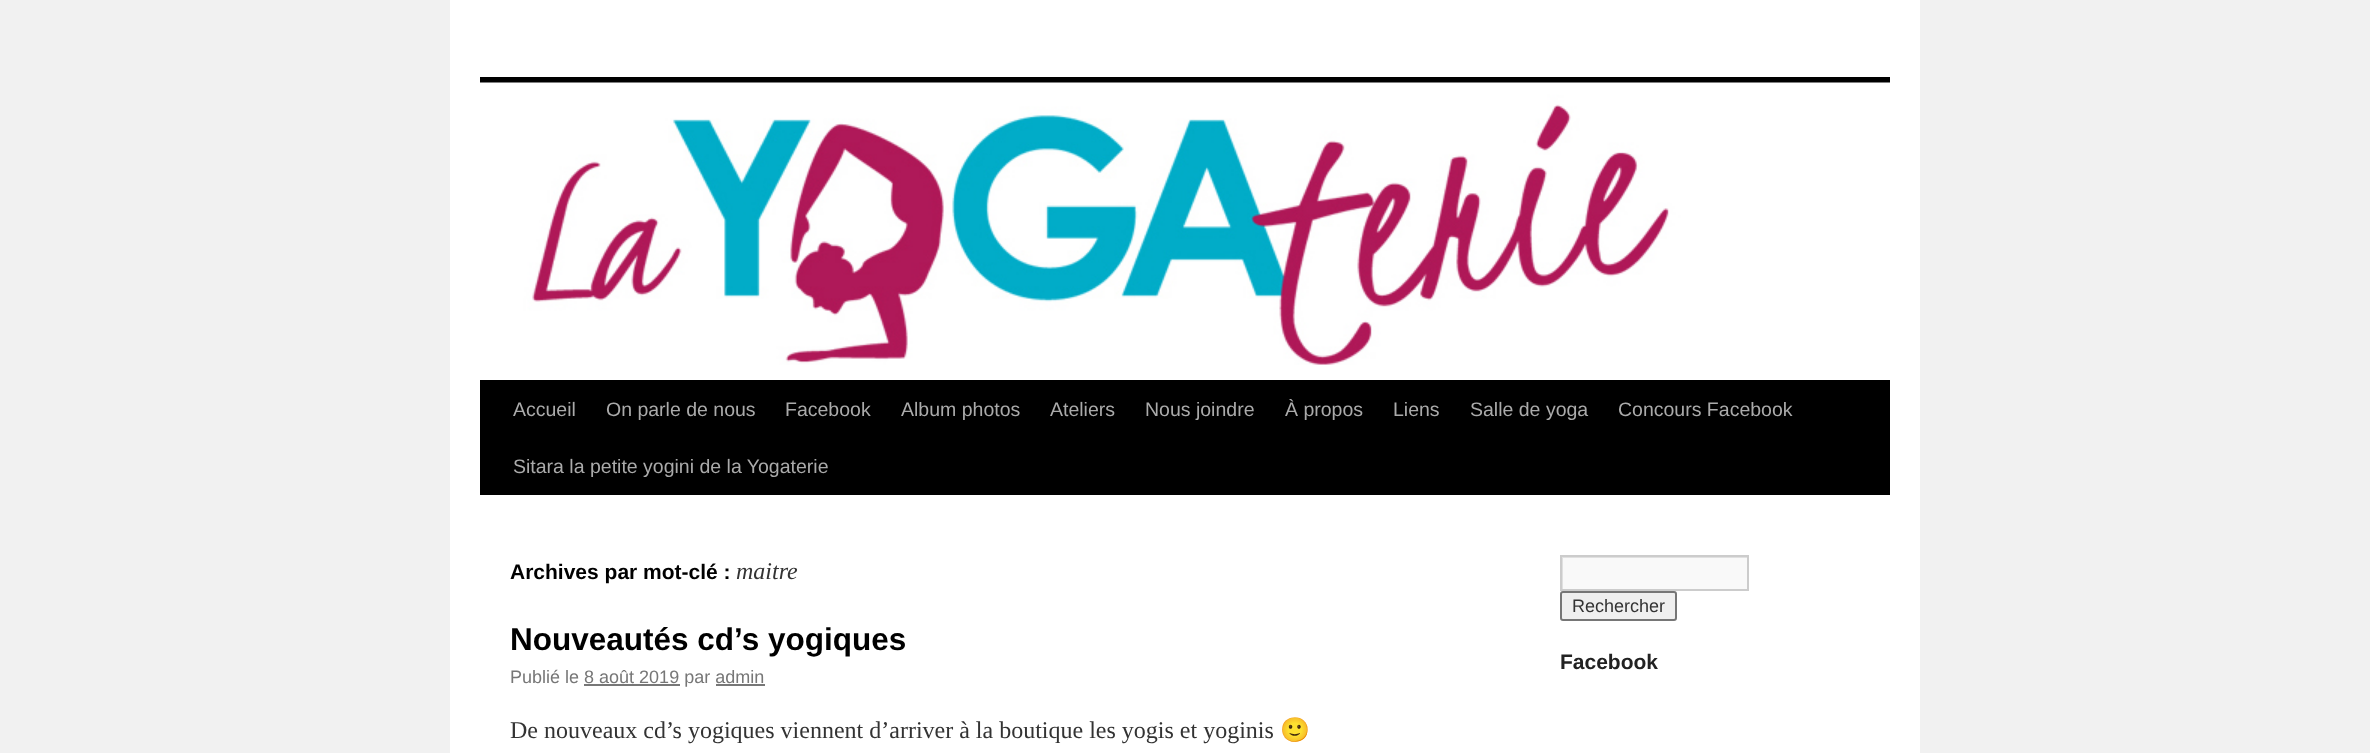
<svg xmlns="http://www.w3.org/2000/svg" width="2370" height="753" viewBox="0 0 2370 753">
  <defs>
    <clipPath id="clip1"><path d="M1562 557h186v33H1562z"/></clipPath>
  </defs>
  <rect width="100%" height="100%" fill="#f1f1f1"/>
  <path d="M450 0h1470v753H450z" fill="#fff"/>
  <path d="M480 77h1410v6H480z" fill="#000"/>
  <path d="M480 380h1410v115H480z" fill="#000"/>
  <image x="480" y="82" width="1410" height="283" href="img/1.png"/>
  <path d="M584 684h96v2H584z" fill="#777"/>
  <path d="M716 684h49v2H716z" fill="#777"/>
  <path d="M1563 558h184v31H1563z" fill="#f9f9f9"/>
  <g clip-path="url(#clip1)">
    <path d="M1413 408H1896V738H1413ZM1563 558H1749V591H1563Z" fill="#e0e0e0" fill-rule="evenodd"/>
  </g>
  <path d="M1561 556h187v34H1561z" fill="none" stroke="#ccc" stroke-width="2"/>
  <rect x="1561" y="592" width="115" height="28" rx="2" fill="#efefef" stroke="#767676" stroke-width="2"/>
  <g font-family="Liberation Sans" font-size="19.5" fill="#aaa">
    <text x="513" y="416">Accueil</text>
    <text x="606" y="416">On parle de nous</text>
    <text x="785" y="416">Facebook</text>
    <text x="901" y="416">Album photos</text>
    <text x="1050" y="416">Ateliers</text>
    <text x="1145" y="416">Nous joindre</text>
    <text x="1285" y="416">À propos</text>
    <text x="1393" y="416">Liens</text>
    <text x="1470" y="416">Salle de yoga</text>
    <text x="1618" y="416">Concours Facebook</text>
    <text x="513" y="473">Sitara la petite yogini de la Yogaterie</text>
  </g>
  <text x="510" y="579" font-family="Liberation Sans" font-size="21" font-weight="bold" fill="#000">Archives par mot-clé :</text>
  <text x="736" y="579" font-family="Liberation Serif" font-size="24" font-style="italic" fill="#333">maitre</text>
  <text x="510" y="650" font-family="Liberation Sans" font-size="31.5" font-weight="bold" fill="#000">Nouveautés cd’s yogiques</text>
  <text x="510" y="683" font-family="Liberation Sans" font-size="18" fill="#777">Publié le 8 août 2019 par admin</text>
  <text x="510" y="738" font-family="Liberation Serif" font-size="24" fill="#333">De nouveaux cd’s yogiques viennent d’arriver à la boutique les yogis et yoginis</text>
  <text x="1280" y="738" font-family="Noto Color Emoji" font-size="24" fill="#333">🙂</text>
  <text x="1572" y="612" font-family="Liberation Sans" font-size="18" fill="#333">Rechercher</text>
  <text x="1560" y="669" font-family="Liberation Sans" font-size="21" font-weight="bold" fill="#222">Facebook</text>
</svg>
